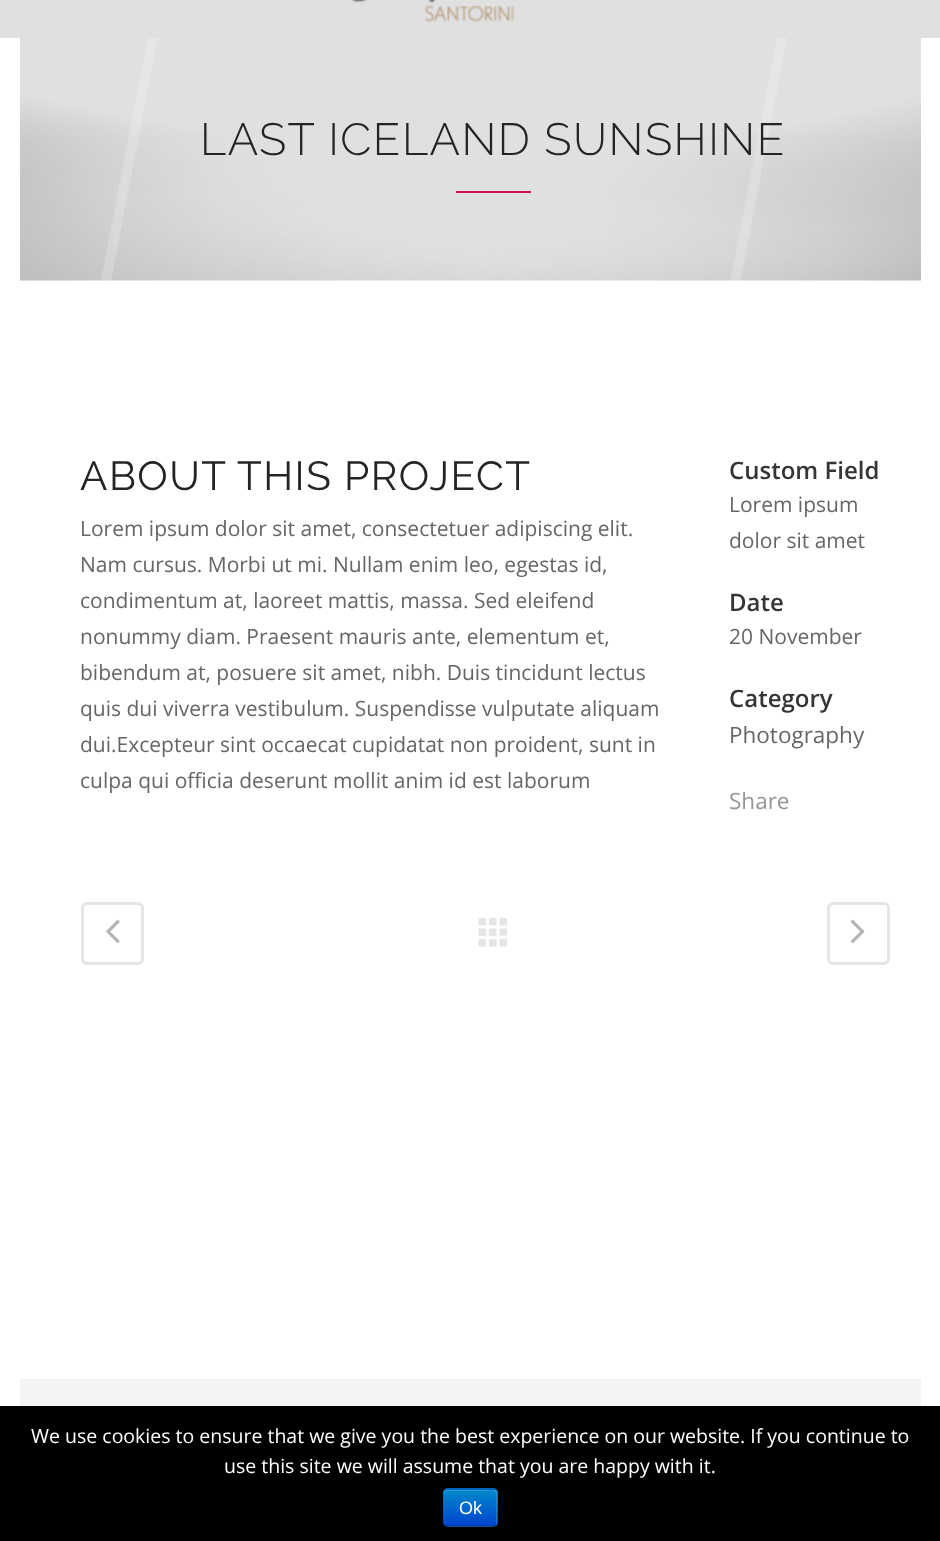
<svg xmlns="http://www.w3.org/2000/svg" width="940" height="1541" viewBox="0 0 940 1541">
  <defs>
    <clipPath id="clip1"><rect x="443" y="1488" width="55" height="39" rx="5"/></clipPath>
    <linearGradient id="g1" gradientUnits="userSpaceOnUse" x1="470" y1="1490" x2="470" y2="1526"><stop offset="0" stop-color="#08c"/><stop offset="1" stop-color="#04c"/></linearGradient>
  </defs>
  <rect width="100%" height="100%" fill="#fff"/>
  <path d="M0 0h940v38H0z" fill="#e0e0e0"/>
  <image x="351" y="0" width="164" height="23" href="img/1.png"/>
  <image x="20" y="38" width="901" height="243" href="img/2.png"/>
  <path d="M456 191h75v2H456z" fill="#d21151"/>
  <rect x="82.5" y="903.5" width="60" height="60" rx="4.5" fill="none" stroke="#e5e5e5" stroke-width="3"/>
  <image x="106" y="919" width="14" height="25" href="img/3.png"/>
  <image x="478" y="918" width="29" height="29" href="img/4.png"/>
  <rect x="828.5" y="903.5" width="60" height="60" rx="4.5" fill="none" stroke="#e5e5e5" stroke-width="3"/>
  <image x="850" y="919" width="15" height="25" href="img/5.png"/>
  <path d="M20 1379h901v27H20z" fill="#f4f4f4"/>
  <path d="M0 1406h940v135H0z" fill="#000"/>
  <rect x="443" y="1488" width="55" height="39" rx="5" fill="#006dcc"/>
  <g clip-path="url(#clip1)">
    <path d="M443 1490h55v36H443z" fill="url(#g1)"/>
  </g>
  <path d="M447 1491H478C498 1491 496 1487 496 1504V1525C497 1525 497 1524 497 1523V1493C497 1491 496 1490 494 1490H447C445 1490 444 1491 444 1493V1494C444 1492 445 1491 447 1491Z" fill="#ffffff33"/>
  <path d="M496 1525C495.5 1526 494.5 1526 493.5 1526H447C446 1526 445 1526 444.5 1525" fill="none" stroke="#00000040" stroke-width="1.5"/>
  <path d="M444.5 1525C443.5 1524.5 443 1523.5 443 1522.5V1492.5C443 1491.5 443.5 1490.5 444.5 1490C445 1489 446 1489 447 1489H493.5C494.5 1489 495.5 1489 496 1490C497 1490.5 497 1491.5 497 1492.5V1522.5C497 1523.5 497 1524.5 496 1525" fill="none" stroke="#0000001a" stroke-width="1.5"/>
  <text x="200" y="155" font-family="Raleway" font-size="45" font-weight="300" letter-spacing="1.5" fill="#242424">LAST ICELAND SUNSHINE</text>
  <text x="80" y="490" font-family="Raleway" font-size="40.5" letter-spacing="1.5" fill="#242424">ABOUT THIS PROJECT</text>
  <g font-family="Open Sans" font-size="21" fill="#666">
    <text x="80" y="536">Lorem ipsum dolor sit amet, consectetuer adipiscing elit.</text>
    <text x="80" y="572">Nam cursus. Morbi ut mi. Nullam enim leo, egestas id,</text>
    <text x="80" y="608">condimentum at, laoreet mattis, massa. Sed eleifend</text>
    <text x="80" y="644">nonummy diam. Praesent mauris ante, elementum et,</text>
    <text x="80" y="680">bibendum at, posuere sit amet, nibh. Duis tincidunt lectus</text>
    <text x="80" y="716">quis dui viverra vestibulum. Suspendisse vulputate aliquam</text>
    <text x="80" y="752">dui.Excepteur sint occaecat cupidatat non proident, sunt in</text>
    <text x="80" y="788">culpa qui officia deserunt mollit anim id est laborum</text>
  </g>
  <text x="729" y="479" font-family="Open Sans" font-size="24" font-weight="600" fill="#353535">Custom Field</text>
  <g font-family="Open Sans" font-size="21" fill="#666">
    <text x="729" y="512">Lorem ipsum</text>
    <text x="729" y="548">dolor sit amet</text>
  </g>
  <text x="729" y="611" font-family="Open Sans" font-size="24" font-weight="600" fill="#353535">Date</text>
  <text x="729" y="644" font-family="Open Sans" font-size="21" fill="#666">20 November</text>
  <text x="729" y="707" font-family="Open Sans" font-size="24" font-weight="600" fill="#353535">Category</text>
  <text x="729" y="743" font-family="Open Sans" font-size="22.5" fill="#666">Photography</text>
  <text x="729" y="809" font-family="Open Sans" font-size="22.5" fill="#969696">Share</text>
  <g font-family="Open Sans" font-size="19.5" fill="#fff">
    <text x="31" y="1443">We use cookies to ensure that we give you the best experience on our website. If you continue to</text>
    <text x="224" y="1473">use this site we will assume that you are happy with it.</text>
  </g>
  <text x="459" y="1514" font-family="Liberation Sans" font-size="18" fill="#fff">Ok</text>
</svg>
